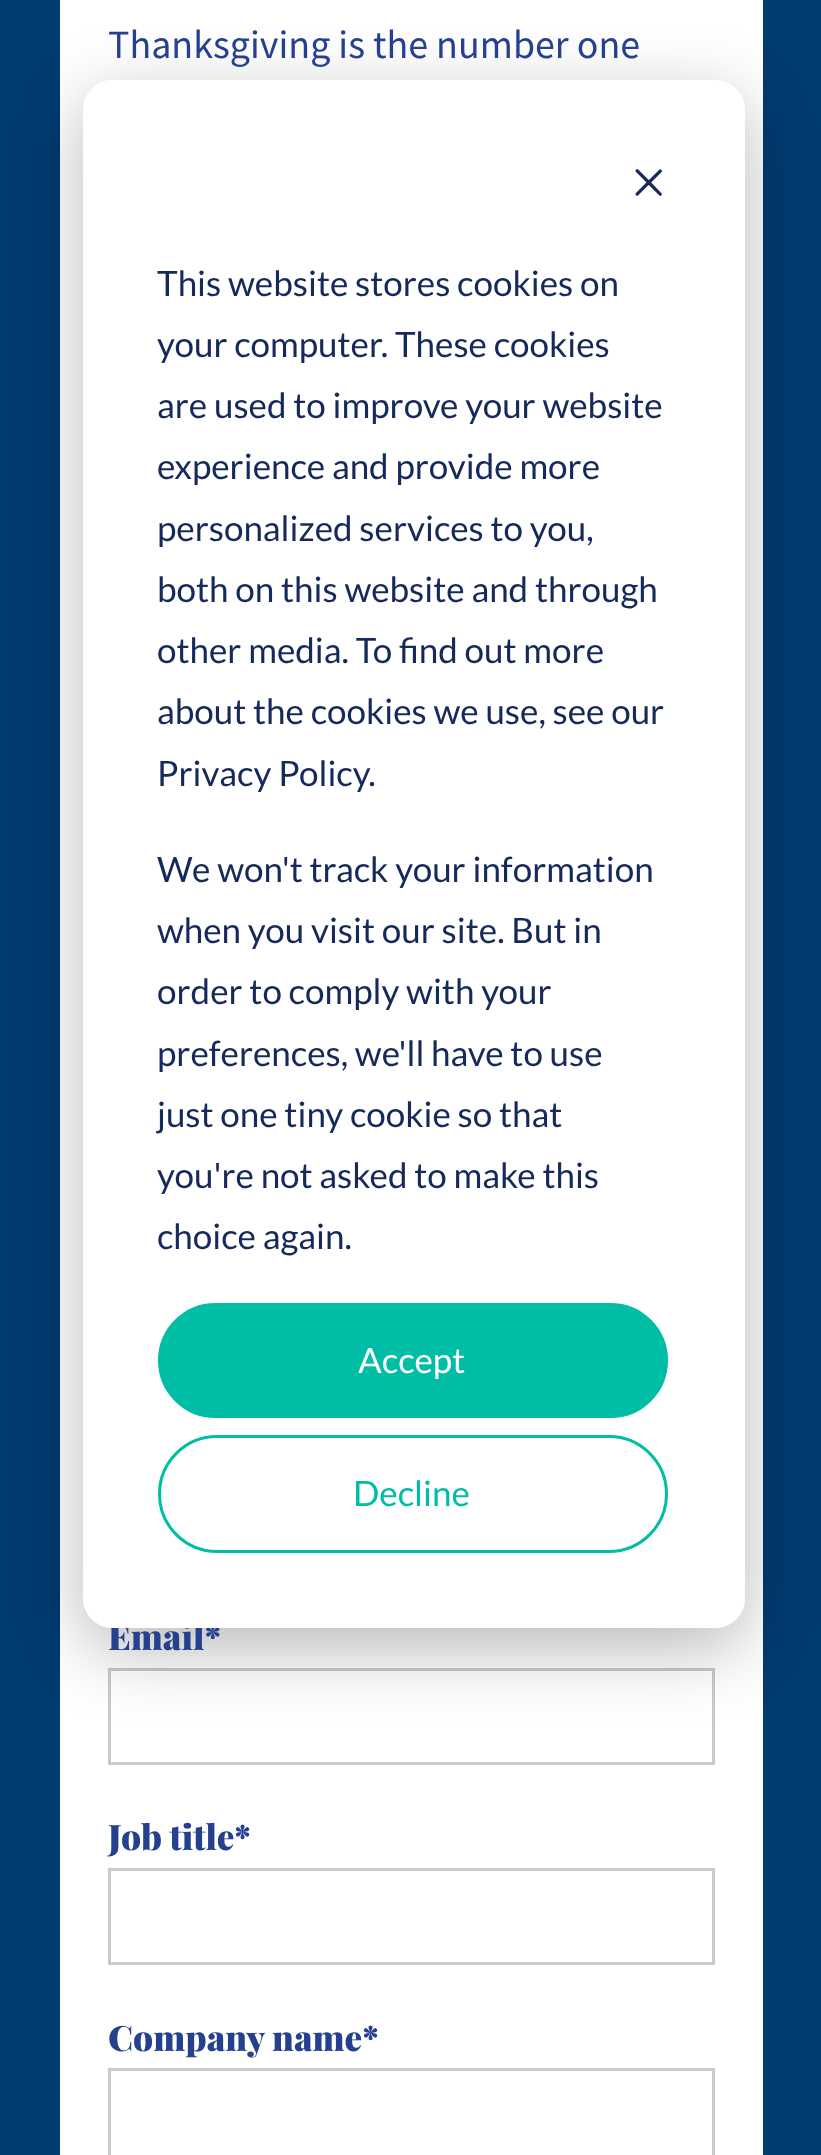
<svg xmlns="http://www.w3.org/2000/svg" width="821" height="2155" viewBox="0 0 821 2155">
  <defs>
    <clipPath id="clip1"><path d="M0 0H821V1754H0ZM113 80H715C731.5 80 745 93.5 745 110V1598C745 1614.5 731.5 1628 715 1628H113C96.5 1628 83 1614.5 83 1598V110C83 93.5 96.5 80 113 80Z" clip-rule="evenodd"/></clipPath>
  </defs>
  <rect width="100%" height="100%" fill="#003b71"/>
  <path d="M60 0h703v2155H60z" fill="#fff"/>
  <path d="M109.5 1669.5h604v94H109.5z" fill="none" stroke="#cacaca" stroke-width="3"/>
  <path d="M109.5 1869.5h604v94H109.5z" fill="none" stroke="#cacaca" stroke-width="3"/>
  <path d="M109.5 2069.5h604v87H109.5z" fill="none" stroke="#cacaca" stroke-width="3"/>
  <g clip-path="url(#clip1)">
    <rect x="83" y="100" width="662" height="1548" rx="30" fill="#00000047" filter="blur(35px)"/>
  </g>
  <text x="108" y="58" font-family="Source Sans Pro" font-size="40" fill="#25408f">Thanksgiving is the number one</text>
  <g font-family="Playfair Display" font-size="35" font-weight="900" fill="#25408f">
    <text x="108" y="1650">Email*</text>
    <text x="108" y="1850">Job title*</text>
    <text x="108" y="2051">Company name*</text>
  </g>
  <rect x="83" y="80" width="662" height="1548" rx="30" fill="#fff"/>
  <image x="635" y="169" width="27" height="27" href="img/1.png"/>
  <g font-family="Lato" font-size="35" fill="#15295a">
    <text x="157" y="296">This website stores cookies on</text>
    <text x="157" y="357">your computer. These cookies</text>
    <text x="157" y="418">are used to improve your website</text>
    <text x="157" y="479">experience and provide more</text>
    <text x="157" y="541">personalized services to you,</text>
    <text x="157" y="602">both on this website and through</text>
    <text x="157" y="663">other media. To find out more</text>
    <text x="157" y="724">about the cookies we use, see our</text>
    <text x="157" y="786">Privacy Policy.</text>
    <text x="157" y="882">We won't track your information</text>
    <text x="157" y="943">when you visit our site. But in</text>
    <text x="157" y="1004">order to comply with your</text>
    <text x="157" y="1066">preferences, we'll have to use</text>
    <text x="157" y="1127">just one tiny cookie so that</text>
    <text x="157" y="1188">you're not asked to make this</text>
    <text x="157" y="1249">choice again.</text>
  </g>
  <rect x="159.5" y="1304.5" width="507" height="112" rx="56" fill="#00bda5" stroke="#00bda5" stroke-width="3"/>
  <text x="358" y="1373" font-family="Lato" font-size="35" fill="#fff">Accept</text>
  <rect x="159.5" y="1436.5" width="507" height="115" rx="57.5" fill="none" stroke="#00bda5" stroke-width="3"/>
  <text x="353" y="1506" font-family="Lato" font-size="35" fill="#00bda5">Decline</text>
</svg>
